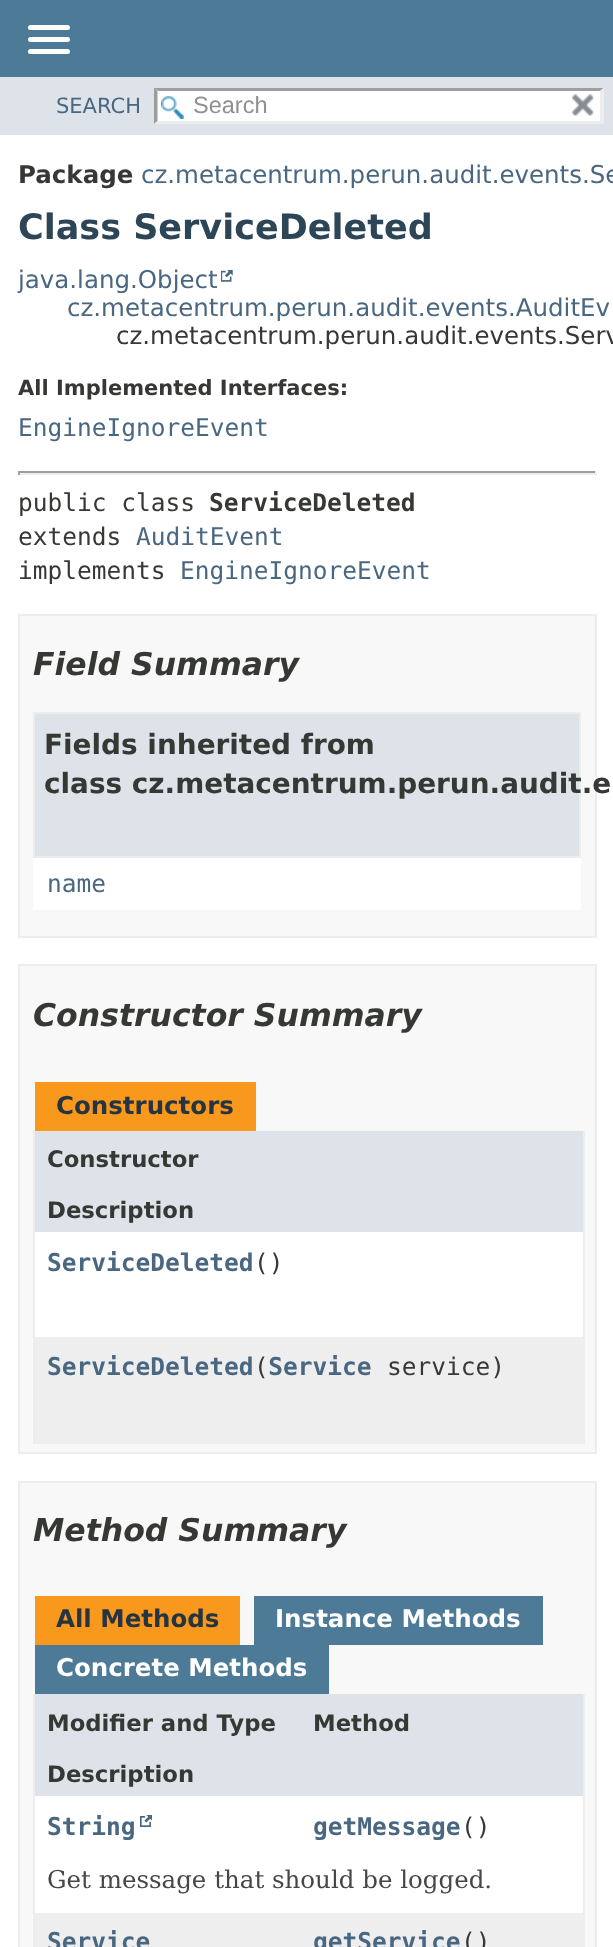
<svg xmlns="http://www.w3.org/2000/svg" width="613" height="1947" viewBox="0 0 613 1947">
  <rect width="100%" height="100%" fill="#fff"/>
  <path d="M0 0h613v77H0z" fill="#4d7a97"/>
  <rect x="28" y="25" width="42" height="5" rx="2.5" fill="#fff"/>
  <rect x="28" y="37" width="42" height="5" rx="2.5" fill="#fff"/>
  <rect x="28" y="49" width="42" height="5" rx="2.5" fill="#fff"/>
  <path d="M0 77h613v58H0z" fill="#dee3e9"/>
  <path d="M154 88h450v36H154z" fill="#fff"/>
  <image x="161" y="96" width="23" height="23" href="img/1.png"/>
  <path d="M154 88H604L600 91H158Z" fill="#9e9e9e"/>
  <path d="M604 87.5V124L600 121V91Z" fill="#ededed"/>
  <path d="M604 124H154L158 121H600Z" fill="#ededed"/>
  <path d="M154 124V87.5L157.5 91V121Z" fill="#9e9e9e"/>
  <image x="572" y="93" width="22" height="23" href="img/2.png"/>
  <image x="221" y="270" width="12" height="12" href="img/3.png"/>
  <path d="M18 471h579v2H18z" fill="#9f9f9f"/>
  <path d="M595 471h2v4H595z" fill="#eee"/>
  <path d="M18 473h579v2H18z" fill="#eee"/>
  <path d="M18 471h2v4H18z" fill="#9f9f9f"/>
  <path d="M19 615h577v322H19z" fill="#f8f8f8" stroke="#ededed" stroke-width="2"/>
  <path d="M33 858h548v52H33z" fill="#fff"/>
  <path d="M34 713h546v144H34z" fill="#dee3e9" stroke="#ededed" stroke-width="2"/>
  <path d="M19 965h577v488H19z" fill="#f8f8f8" stroke="#ededed" stroke-width="2"/>
  <path d="M35 1082h221v49H35z" fill="#f8981d"/>
  <path d="M583 1131h2v313H583z" fill="#ededed"/>
  <path d="M33 1442h552v2H33z" fill="#ededed"/>
  <path d="M33 1131h2v313H33z" fill="#ededed"/>
  <path d="M35 1131h548v101H35z" fill="#dee3e9"/>
  <path d="M35 1232h548v105H35z" fill="#fff"/>
  <path d="M35 1337h548v105H35z" fill="#eeeeef"/>
  <path d="M19 1482h577v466H19z" fill="#f8f8f8" stroke="#ededed" stroke-width="2"/>
  <path d="M35 1596h205v49H35z" fill="#f8981d"/>
  <path d="M254 1596h289v49H254z" fill="#4d7a97"/>
  <path d="M35 1645h294v49H35z" fill="#4d7a97"/>
  <path d="M583 1694h2v253H583z" fill="#ededed"/>
  <path d="M33 1694h2v253H33z" fill="#ededed"/>
  <path d="M35 1694h548v102H35z" fill="#dee3e9"/>
  <path d="M35 1796h548v117H35z" fill="#fff"/>
  <image x="140" y="1815" width="12" height="12" href="img/4.png"/>
  <path d="M35 1913h548v34H35z" fill="#eeeeef"/>
  <text x="56" y="113" font-family="DejaVu Sans" font-size="21" fill="#4a6782">SEARCH</text>
  <text x="193" y="113" font-family="Liberation Sans" font-size="23.5" fill="#909090">Search</text>
  <text x="18" y="183" font-family="DejaVu Sans" font-size="24.5" font-weight="bold" fill="#353833">Package</text>
  <text x="141" y="183" font-family="DejaVu Sans" font-size="24.5" fill="#4a6782">cz.metacentrum.perun.audit.events.Se</text>
  <text x="18" y="239" font-family="DejaVu Sans" font-size="35" font-weight="bold" fill="#2c4557">Class ServiceDeleted</text>
  <g font-family="DejaVu Sans" font-size="24.5" fill="#4a6782">
    <text x="18" y="288">java.lang.Object</text>
    <text x="67" y="316">cz.metacentrum.perun.audit.events.AuditEv</text>
  </g>
  <text x="116" y="344" font-family="DejaVu Sans" font-size="24.5" fill="#353833">cz.metacentrum.perun.audit.events.Serv</text>
  <text x="18" y="395" font-family="DejaVu Sans" font-size="21" font-weight="bold" fill="#353833">All Implemented Interfaces:</text>
  <text x="18" y="436" font-family="DejaVu Sans Mono" font-size="24.5" fill="#4a6782">EngineIgnoreEvent</text>
  <text x="18" y="511" font-family="DejaVu Sans Mono" font-size="24.5" fill="#353833">public class</text>
  <text x="209" y="511" font-family="DejaVu Sans Mono" font-size="24.5" font-weight="bold" fill="#353833">ServiceDeleted</text>
  <text x="18" y="545" font-family="DejaVu Sans Mono" font-size="24.5" fill="#353833">extends</text>
  <text x="136" y="545" font-family="DejaVu Sans Mono" font-size="24.5" fill="#4a6782">AuditEvent</text>
  <text x="18" y="579" font-family="DejaVu Sans Mono" font-size="24.5" fill="#353833">implements</text>
  <text x="180" y="579" font-family="DejaVu Sans Mono" font-size="24.5" fill="#4a6782">EngineIgnoreEvent</text>
  <text x="33" y="675" font-family="DejaVu Sans" font-size="31.5" font-weight="bold" font-style="italic" fill="#353833">Field Summary</text>
  <g font-family="DejaVu Sans" font-size="27.9" font-weight="bold" fill="#353833">
    <text x="44" y="754">Fields inherited from</text>
    <text x="44" y="793">class cz.metacentrum.perun.audit.e</text>
  </g>
  <text x="47" y="892" font-family="DejaVu Sans Mono" font-size="24.5" fill="#4a6782">name</text>
  <text x="33" y="1026" font-family="DejaVu Sans" font-size="31.5" font-weight="bold" font-style="italic" fill="#353833">Constructor Summary</text>
  <text x="56" y="1114" font-family="DejaVu Sans" font-size="24.5" font-weight="bold" fill="#253441">Constructors</text>
  <g font-family="DejaVu Sans" font-size="22.75" font-weight="bold" fill="#353833">
    <text x="47" y="1167">Constructor</text>
    <text x="47" y="1218">Description</text>
  </g>
  <text x="47" y="1271" font-family="DejaVu Sans Mono" font-size="24.5" font-weight="bold" fill="#4a6782">ServiceDeleted</text>
  <text x="254" y="1271" font-family="DejaVu Sans Mono" font-size="24.5" fill="#353833">()</text>
  <text x="47" y="1375" font-family="DejaVu Sans Mono" font-size="24.5" font-weight="bold" fill="#4a6782">ServiceDeleted Service</text>
  <g font-family="DejaVu Sans Mono" font-size="24.5" fill="#353833">
    <text x="254" y="1375">(</text>
    <text x="387" y="1375">service)</text>
  </g>
  <text x="33" y="1541" font-family="DejaVu Sans" font-size="31.5" font-weight="bold" font-style="italic" fill="#353833">Method Summary</text>
  <text x="56" y="1627" font-family="DejaVu Sans" font-size="24.5" font-weight="bold" fill="#253441">All Methods</text>
  <g font-family="DejaVu Sans" font-size="24.5" font-weight="bold" fill="#fff">
    <text x="275" y="1627">Instance Methods</text>
    <text x="56" y="1676">Concrete Methods</text>
  </g>
  <g font-family="DejaVu Sans" font-size="22.75" font-weight="bold" fill="#353833">
    <text x="47" y="1731">Modifier and Type</text>
    <text x="313" y="1731">Method</text>
    <text x="47" y="1782">Description</text>
  </g>
  <g font-family="DejaVu Sans Mono" font-size="24.5" font-weight="bold" fill="#4a6782">
    <text x="47" y="1835">String</text>
    <text x="313" y="1835">getMessage</text>
  </g>
  <text x="461" y="1835" font-family="DejaVu Sans Mono" font-size="24.5" fill="#353833">()</text>
  <text x="47" y="1888" font-family="DejaVu Serif" font-size="24.5" fill="#474747">Get message that should be logged.</text>
  <g font-family="DejaVu Sans Mono" font-size="24.5" font-weight="bold" fill="#4a6782">
    <text x="47" y="1950">Service</text>
    <text x="313" y="1950">getService</text>
  </g>
  <text x="461" y="1950" font-family="DejaVu Sans Mono" font-size="24.5" fill="#353833">()</text>
</svg>
